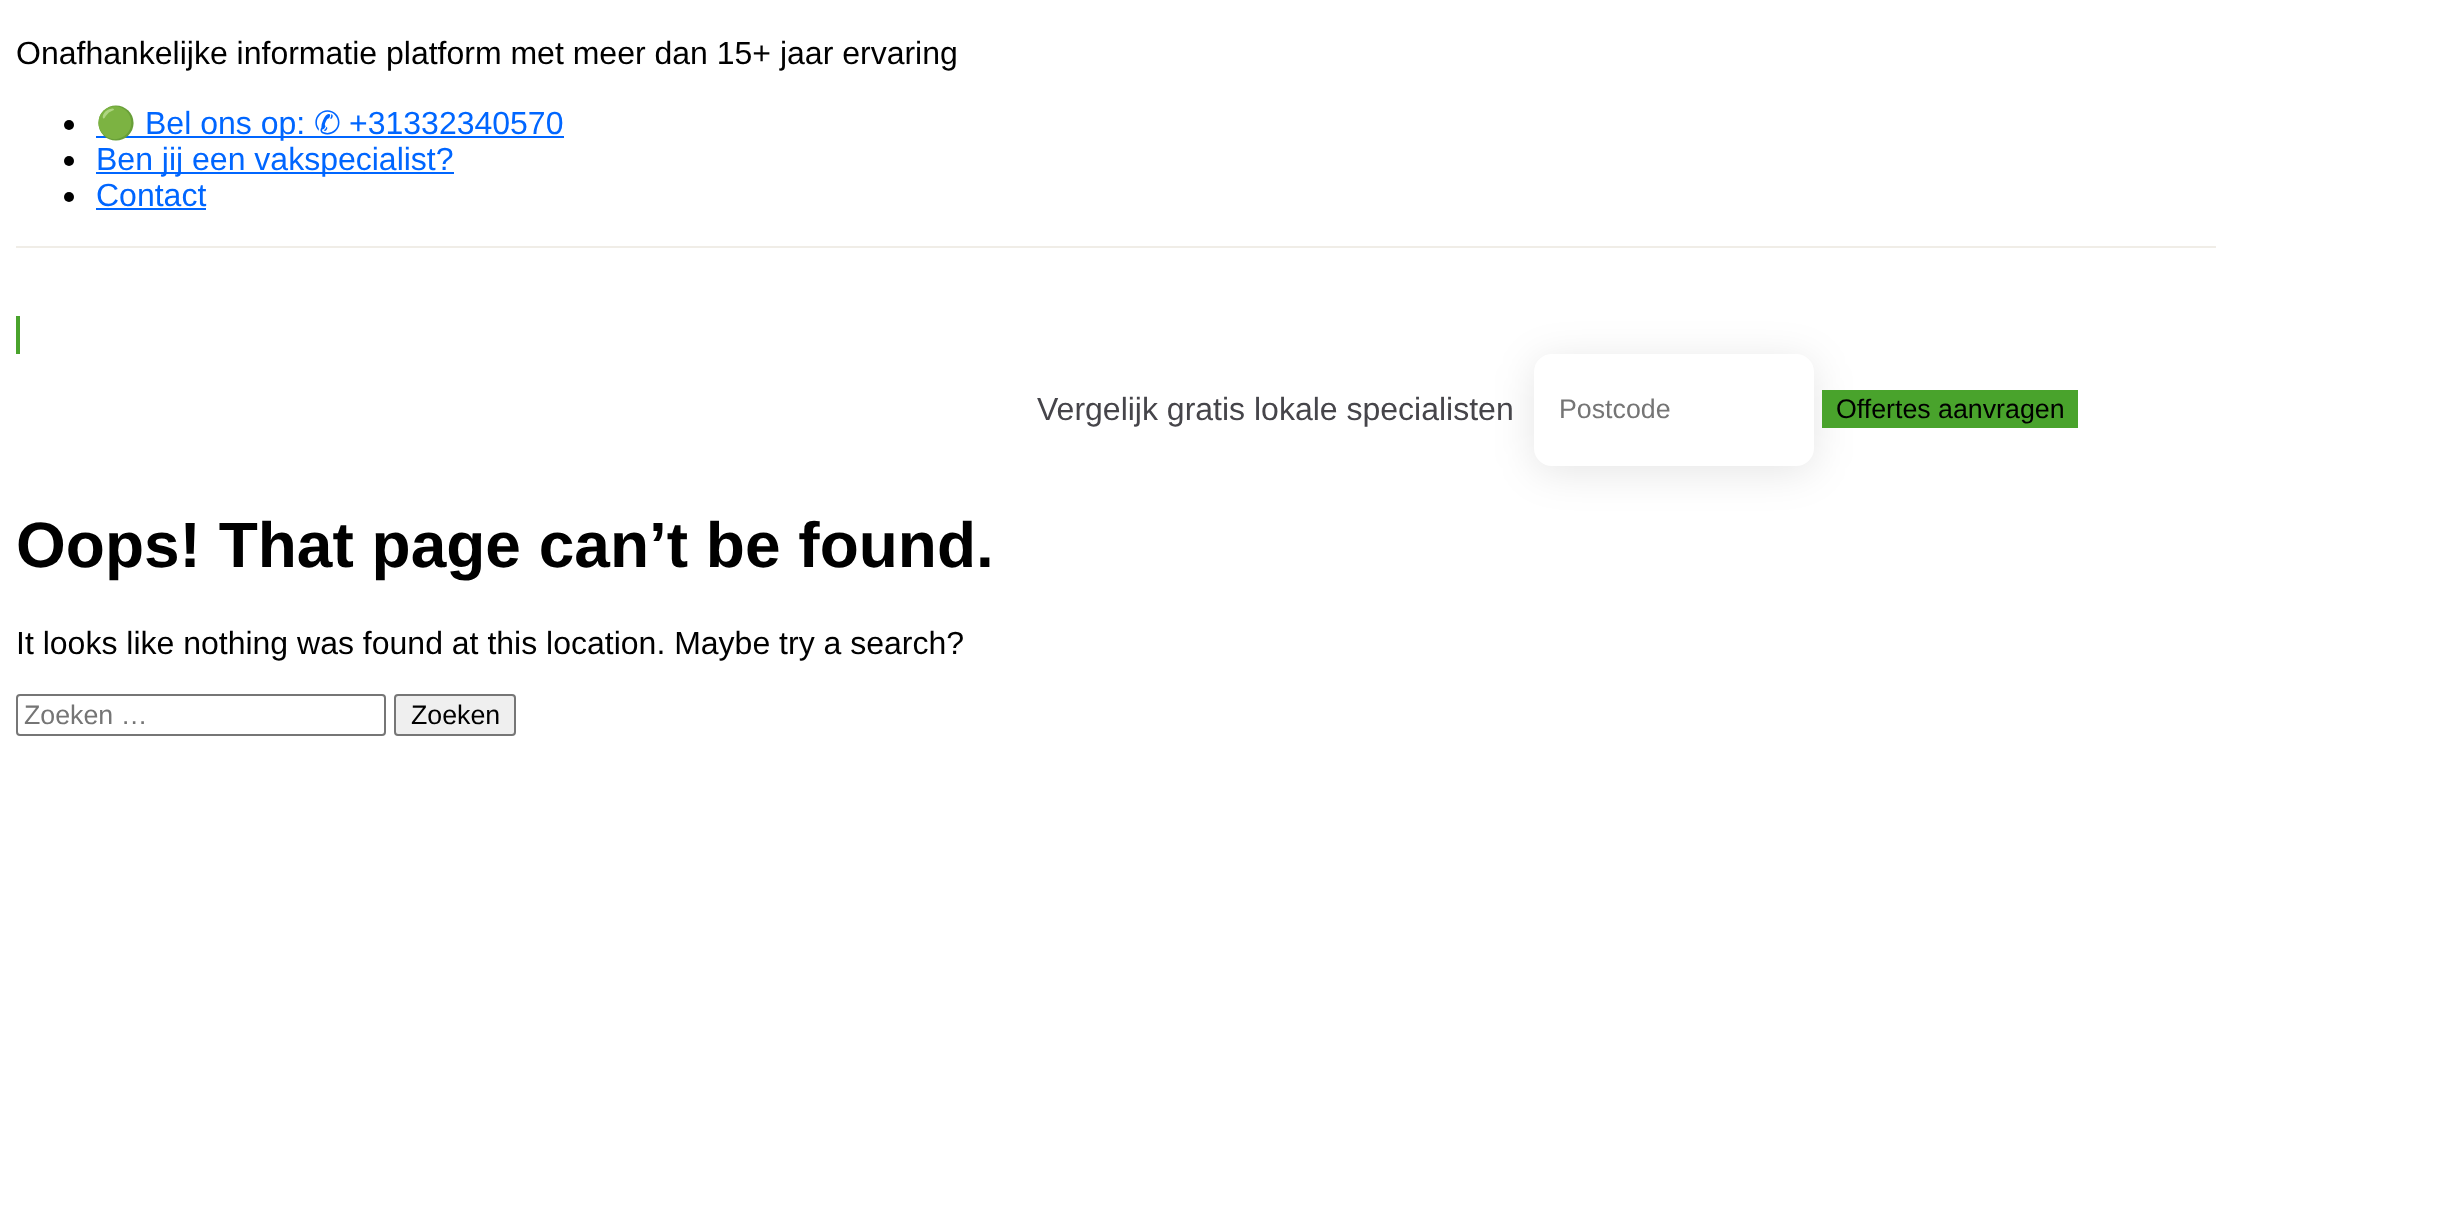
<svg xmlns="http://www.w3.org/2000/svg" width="2443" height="1214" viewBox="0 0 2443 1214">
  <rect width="100%" height="100%" fill="#fff"/>
  <path d="M16 246h2200v2H16z" fill="#f0ede7"/>
  <circle cx="69" cy="125" r="5" fill="#000"/>
  <path d="M96 136h468v2H96z" fill="#06f"/>
  <circle cx="69" cy="161" r="5" fill="#000"/>
  <path d="M96 172h358v2H96z" fill="#06f"/>
  <circle cx="69" cy="197" r="5" fill="#000"/>
  <path d="M96 208h110v2H96z" fill="#06f"/>
  <path d="M16 316h4v38H16z" fill="#49a32c"/>
  <rect x="1534" y="360" width="280" height="112" rx="18" fill="#0000001a" filter="blur(20px)"/>
  <rect x="1535" y="355" width="278" height="110" rx="17" fill="#fff" stroke="#fff" stroke-width="2"/>
  <path d="M1822 390h256v38H1822z" fill="#49a32c"/>
  <rect x="17" y="695" width="368" height="40" rx="3" fill="none" stroke="#767676" stroke-width="2"/>
  <rect x="395" y="695" width="120" height="40" rx="3" fill="#efefef" stroke="#767676" stroke-width="2"/>
  <text x="16" y="64" font-family="Liberation Sans" font-size="32" fill="#000">Onafhankelijke informatie platform met meer dan 15+ jaar ervaring</text>
  <text x="96" y="134" font-family="Noto Color Emoji" font-size="32" fill="#06f">🟢</text>
  <text x="145" y="134" font-family="Liberation Sans" font-size="32" fill="#06f">Bel ons op:</text>
  <text x="314" y="134" font-family="DejaVu Sans" font-size="32" fill="#06f">✆</text>
  <g font-family="Liberation Sans" font-size="32" fill="#06f">
    <text x="349" y="134">+31332340570</text>
    <text x="96" y="170">Ben jij een vakspecialist?</text>
    <text x="96" y="206">Contact</text>
  </g>
  <text x="1037" y="420" font-family="Liberation Sans" font-size="32" fill="#46454a">Vergelijk gratis lokale specialisten</text>
  <text x="1559" y="418" font-family="Liberation Sans" font-size="26.75" fill="#757575">Postcode</text>
  <text x="1836" y="418" font-family="Liberation Sans" font-size="26.75" fill="#000">Offertes aanvragen</text>
  <text x="16" y="567" font-family="Liberation Sans" font-size="64" font-weight="bold" fill="#000">Oops! That page can’t be found.</text>
  <text x="16" y="654" font-family="Liberation Sans" font-size="32" fill="#000">It looks like nothing was found at this location. Maybe try a search?</text>
  <text x="24" y="724" font-family="Liberation Sans" font-size="26.75" fill="#757575">Zoeken …</text>
  <text x="411" y="724" font-family="Liberation Sans" font-size="26.75" fill="#000">Zoeken</text>
</svg>
